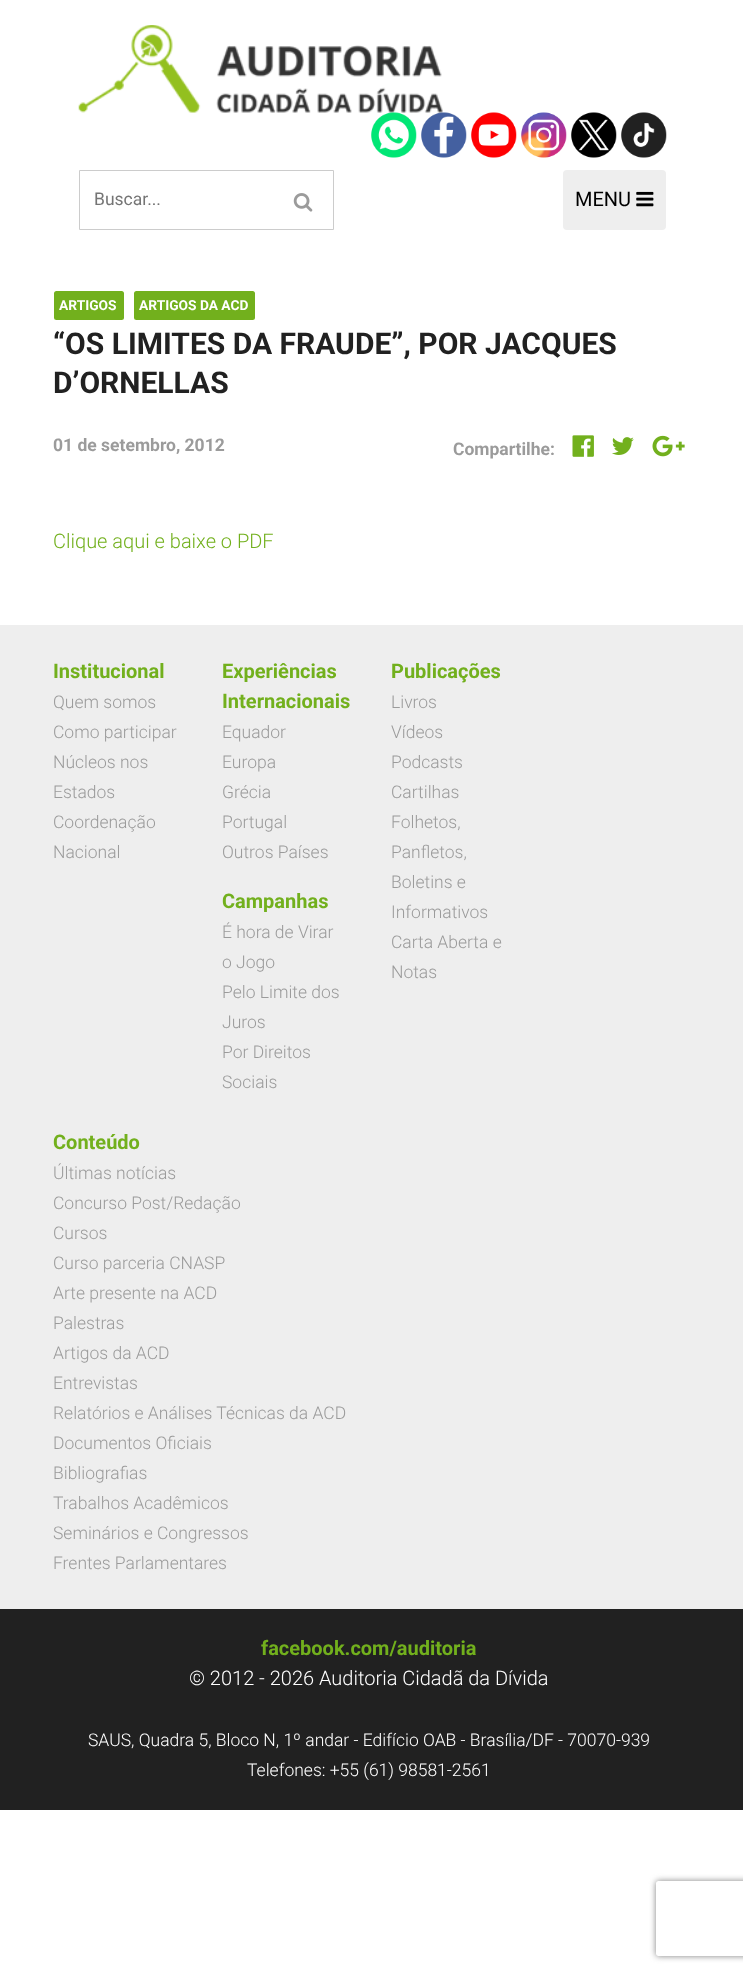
<svg xmlns="http://www.w3.org/2000/svg" width="743" height="1973" viewBox="0 0 743 1973">
  <defs>
    <clipPath id="clip1"><path d="M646 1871H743V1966H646ZM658.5 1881H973.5C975 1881 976 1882 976 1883.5V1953.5C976 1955 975 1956 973.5 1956H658.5C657 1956 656 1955 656 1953.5V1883.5C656 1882 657 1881 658.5 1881Z" clip-rule="evenodd"/></clipPath>
  </defs>
  <rect width="100%" height="100%" fill="#fff"/>
  <image x="78" y="25" width="365" height="88" href="img/1.png"/>
  <image x="371" y="112" width="46" height="46" href="img/2.png"/>
  <image x="421" y="112" width="46" height="46" href="img/3.png"/>
  <image x="471" y="112" width="46" height="46" href="img/4.png"/>
  <image x="521" y="112" width="46" height="46" href="img/5.png"/>
  <image x="571" y="112" width="46" height="46" href="img/6.png"/>
  <image x="621" y="112" width="46" height="46" href="img/7.png"/>
  <path d="M79.5 170.5h254v59H79.5z" fill="none" stroke="#ccc"/>
  <image x="293" y="193" width="20" height="19" href="img/8.png"/>
  <rect x="563" y="170" width="103" height="60" rx="4" fill="#eee"/>
  <image x="636" y="191" width="18" height="16" href="img/9.png"/>
  <rect x="54" y="291" width="70" height="29" rx="2.5" fill="#72b01d"/>
  <rect x="134" y="291" width="121" height="29" rx="2.5" fill="#72b01d"/>
  <image x="572" y="435" width="22" height="22" href="img/10.png"/>
  <image x="612" y="437" width="22" height="18" href="img/11.png"/>
  <image x="652" y="435" width="33" height="22" href="img/12.png"/>
  <path d="M0 625h743v984H0z" fill="#eee"/>
  <path d="M0 1609h743v201H0z" fill="#212121"/>
  <g clip-path="url(#clip1)">
    <rect x="656" y="1881" width="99" height="75" rx="2.5" fill="#808080" filter="blur(3px)"/>
  </g>
  <text x="94" y="205" font-family="Roboto" font-size="17.5" fill="#757575">Buscar...</text>
  <text x="575" y="206" font-family="Roboto" font-size="20" fill="#000">MENU</text>
  <g font-family="Roboto" font-size="13.75" font-weight="bold" fill="#fff">
    <text x="59" y="310">ARTIGOS</text>
    <text x="139" y="310">ARTIGOS DA ACD</text>
  </g>
  <g font-family="Roboto" font-size="30" font-weight="bold" fill="#212121">
    <text x="53" y="354">“OS LIMITES DA FRAUDE”, POR JACQUES</text>
    <text x="53" y="393">D’ORNELLAS</text>
  </g>
  <g font-family="Roboto" font-size="17.5" font-weight="bold" fill="#9b9b9b">
    <text x="53" y="451">01 de setembro, 2012</text>
    <text x="453" y="455">Compartilhe:</text>
  </g>
  <text x="53" y="548" font-family="Roboto" font-size="20" font-weight="300" fill="#72b01d">Clique aqui e baixe o PDF</text>
  <text x="53" y="678" font-family="Roboto" font-size="20" font-weight="bold" fill="#72b01d">Institucional</text>
  <g font-family="Roboto" font-size="17.5" font-weight="300" fill="#9b9b9b">
    <text x="53" y="708">Quem somos</text>
    <text x="53" y="738">Como participar</text>
    <text x="53" y="768">Núcleos nos</text>
    <text x="53" y="798">Estados</text>
    <text x="53" y="828">Coordenação</text>
    <text x="53" y="858">Nacional</text>
  </g>
  <g font-family="Roboto" font-size="20" font-weight="bold" fill="#72b01d">
    <text x="222" y="678">Experiências</text>
    <text x="222" y="708">Internacionais</text>
  </g>
  <g font-family="Roboto" font-size="17.5" font-weight="300" fill="#9b9b9b">
    <text x="222" y="738">Equador</text>
    <text x="222" y="768">Europa</text>
    <text x="222" y="798">Grécia</text>
    <text x="222" y="828">Portugal</text>
    <text x="222" y="858">Outros Países</text>
  </g>
  <text x="222" y="908" font-family="Roboto" font-size="20" font-weight="bold" fill="#72b01d">Campanhas</text>
  <g font-family="Roboto" font-size="17.5" font-weight="300" fill="#9b9b9b">
    <text x="222" y="938">É hora de Virar</text>
    <text x="222" y="968">o Jogo</text>
    <text x="222" y="998">Pelo Limite dos</text>
    <text x="222" y="1028">Juros</text>
    <text x="222" y="1058">Por Direitos</text>
    <text x="222" y="1088">Sociais</text>
  </g>
  <text x="391" y="678" font-family="Roboto" font-size="20" font-weight="bold" fill="#72b01d">Publicações</text>
  <g font-family="Roboto" font-size="17.5" font-weight="300" fill="#9b9b9b">
    <text x="391" y="708">Livros</text>
    <text x="391" y="738">Vídeos</text>
    <text x="391" y="768">Podcasts</text>
    <text x="391" y="798">Cartilhas</text>
    <text x="391" y="828">Folhetos,</text>
    <text x="391" y="858">Panfletos,</text>
    <text x="391" y="888">Boletins e</text>
    <text x="391" y="918">Informativos</text>
    <text x="391" y="948">Carta Aberta e</text>
    <text x="391" y="978">Notas</text>
  </g>
  <text x="53" y="1149" font-family="Roboto" font-size="20" font-weight="bold" fill="#72b01d">Conteúdo</text>
  <g font-family="Roboto" font-size="17.5" font-weight="300" fill="#9b9b9b">
    <text x="53" y="1179">Últimas notícias</text>
    <text x="53" y="1209">Concurso Post/Redação</text>
    <text x="53" y="1239">Cursos</text>
    <text x="53" y="1269">Curso parceria CNASP</text>
    <text x="53" y="1299">Arte presente na ACD</text>
    <text x="53" y="1329">Palestras</text>
    <text x="53" y="1359">Artigos da ACD</text>
    <text x="53" y="1389">Entrevistas</text>
    <text x="53" y="1419">Relatórios e Análises Técnicas da ACD</text>
    <text x="53" y="1449">Documentos Oficiais</text>
    <text x="53" y="1479">Bibliografias</text>
    <text x="53" y="1509">Trabalhos Acadêmicos</text>
    <text x="53" y="1539">Seminários e Congressos</text>
    <text x="53" y="1569">Frentes Parlamentares</text>
  </g>
  <text x="261" y="1655" font-family="Roboto" font-size="20" font-weight="bold" fill="#72b01d">facebook.com/auditoria</text>
  <text x="189" y="1685" font-family="Roboto" font-size="20" font-weight="300" fill="#fff">© 2012 - 2026 Auditoria Cidadã da Dívida</text>
  <g font-family="Roboto" font-size="17.5" font-weight="300" fill="#fff">
    <text x="88" y="1746">SAUS, Quadra 5, Bloco N, 1º andar - Edifício OAB - Brasília/DF - 70070-939</text>
    <text x="247" y="1776">Telefones: +55 (61) 98581-2561</text>
  </g>
</svg>
